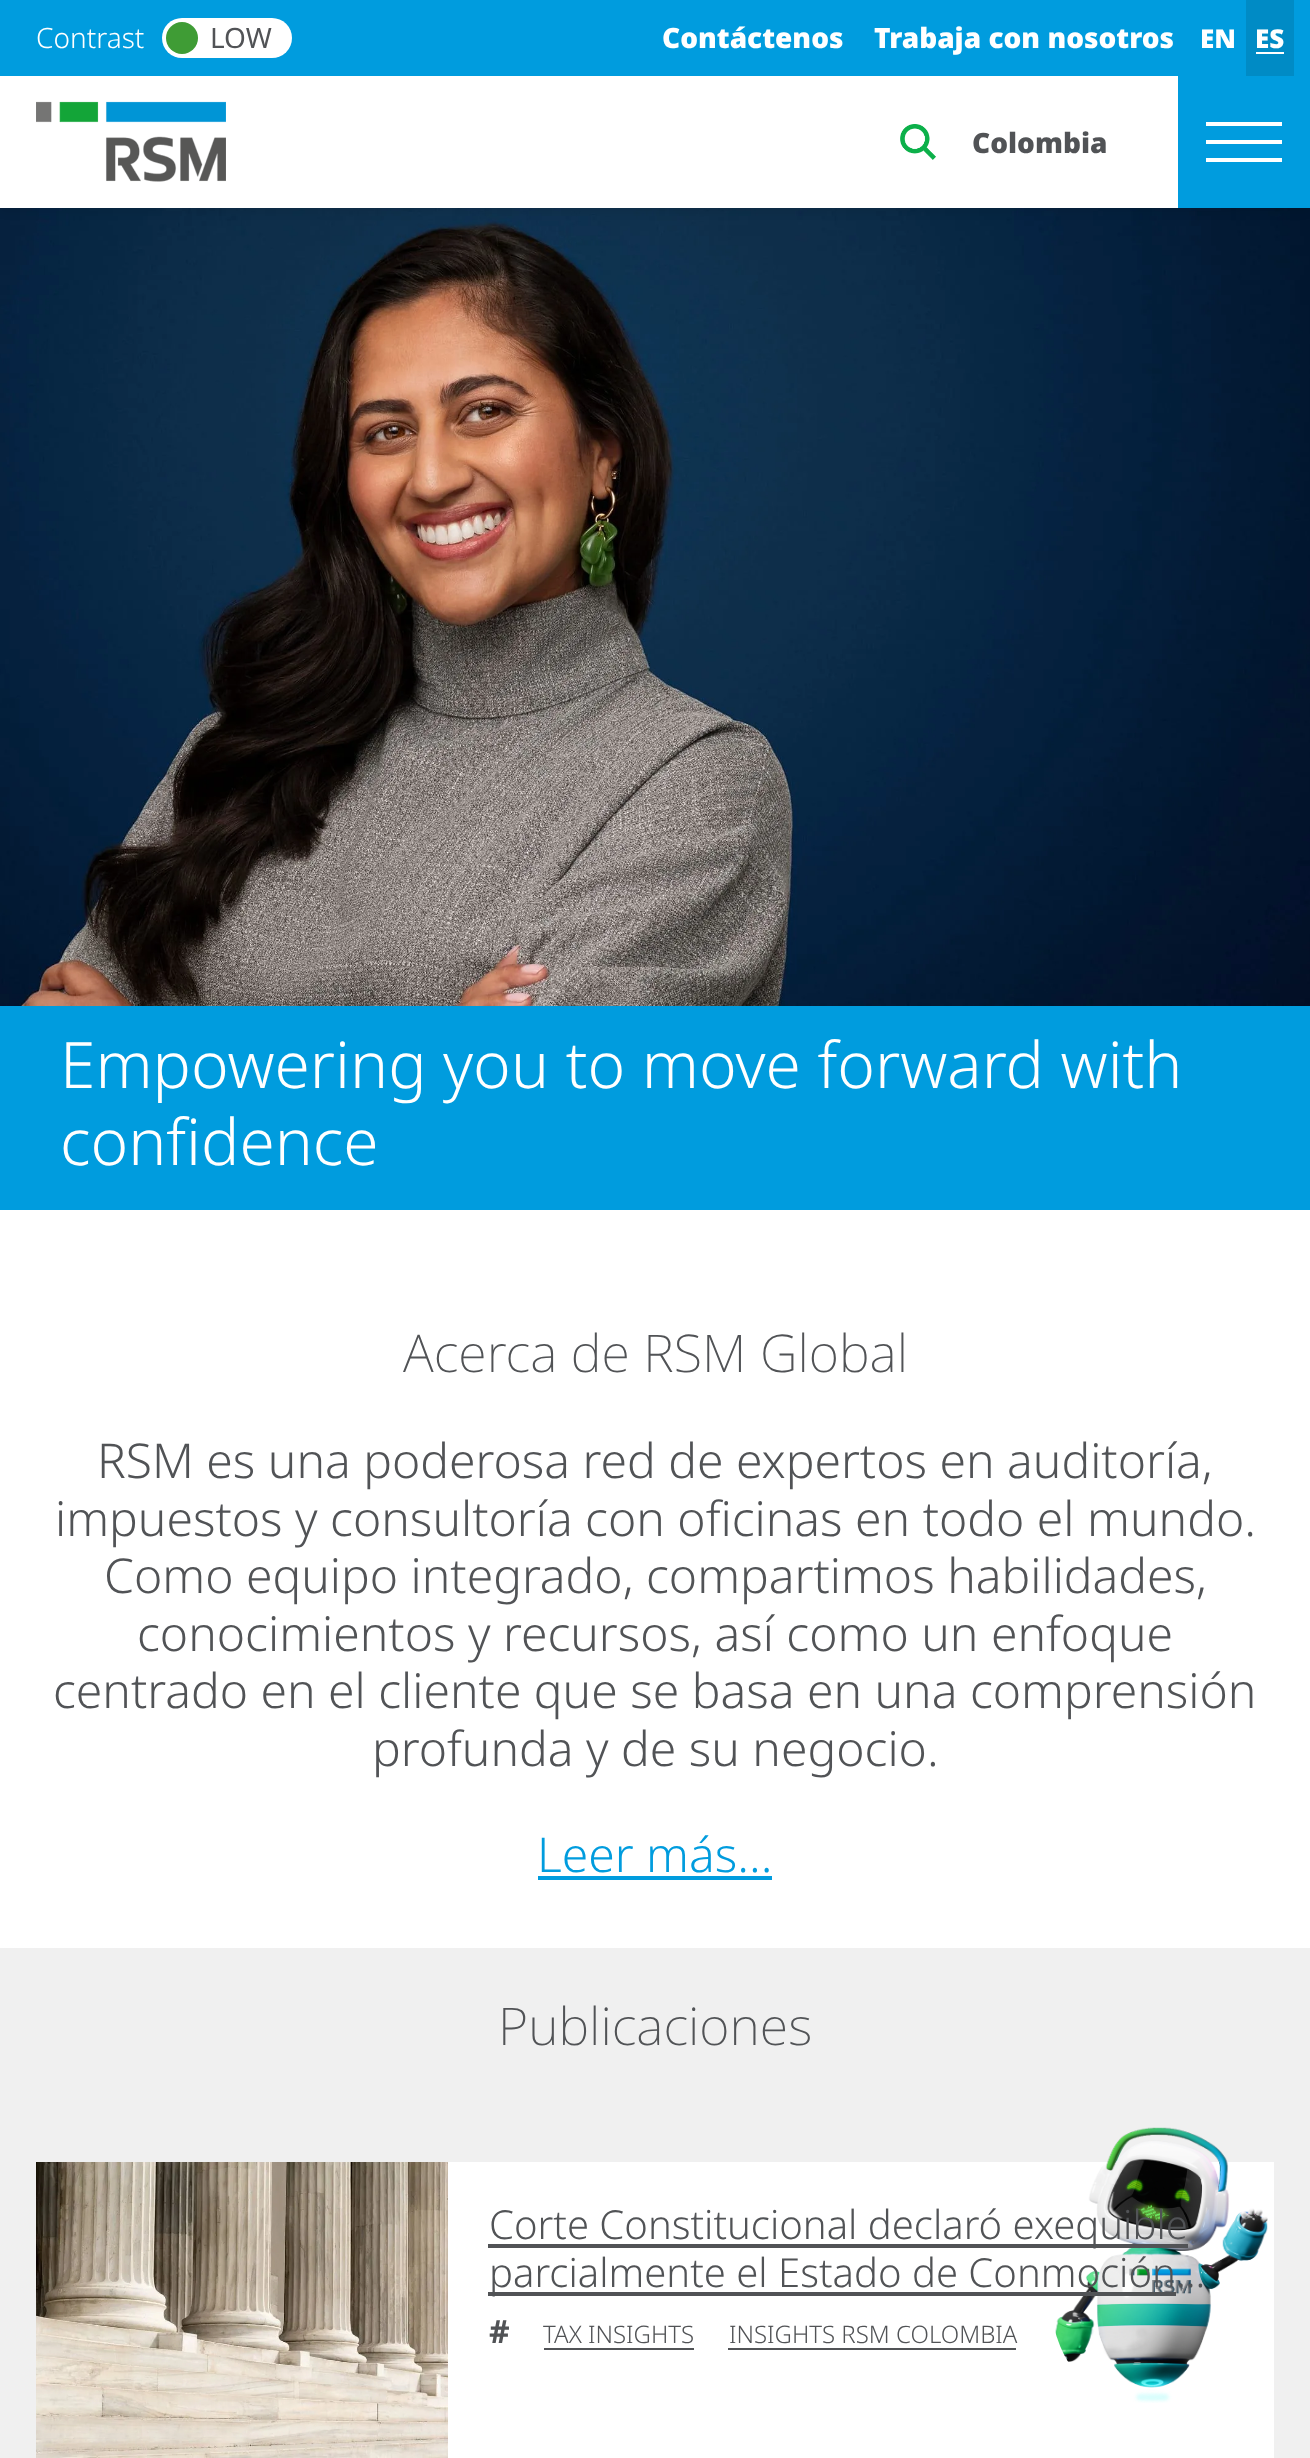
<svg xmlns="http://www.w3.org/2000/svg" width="1310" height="2458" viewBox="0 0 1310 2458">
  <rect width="100%" height="100%" fill="#fff"/>
  <image x="0" y="208" width="1310" height="798" href="img/3.png"/>
  <path d="M0 4h1310v208H0z" fill="#00000012" filter="blur(4px)"/>
  <path d="M0 76h1178v132H0z" fill="#fff"/>
  <path d="M0 0h1310v76H0z" fill="#009cde"/>
  <rect x="162" y="18" width="130" height="40" rx="20" fill="#fff"/>
  <circle cx="182" cy="38" r="16" fill="#3f9c35"/>
  <path d="M1246 0h48v76H1246z" fill="#008bc5"/>
  <path d="M1256 52h28v2H1256z" fill="#fff"/>
  <image x="36" y="101" width="190" height="81" href="img/1.png"/>
  <image x="900" y="124" width="36" height="36" href="img/2.png"/>
  <path d="M1178 76h132v132H1178z" fill="#009cde"/>
  <path d="M1206 122h76v4H1206z" fill="#fff"/>
  <path d="M1206 140h76v4H1206z" fill="#fff"/>
  <path d="M1206 158h76v4H1206z" fill="#fff"/>
  <path d="M0 1006h1310v204H0z" fill="#009cde"/>
  <path d="M538 1876h234v4H538z" fill="#009cde"/>
  <path d="M0 1948h1310v510H0z" fill="#f0f0f0"/>
  <path d="M448 2162h826v296H448z" fill="#fff"/>
  <image x="36" y="2162" width="412" height="296" href="img/4.png"/>
  <image x="1055" y="2127" width="213" height="276" href="img/5.png"/>
  <path d="M488 2244h700v4H488z" fill="#515356"/>
  <path d="M488 2292h688v4H488z" fill="#515356"/>
  <path d="M544 2348h150v2H544z" fill="#515356"/>
  <path d="M728 2348h288v2H728z" fill="#515356"/>
  <text x="36" y="48" font-family="Noto Sans" font-size="28" font-weight="300" fill="#fff">Contrast</text>
  <text x="210" y="48" font-family="Noto Sans" font-size="28" fill="#515356">LOW</text>
  <g font-family="Noto Sans" font-size="28" font-weight="900" fill="#fff">
    <text x="662" y="48">Contáctenos</text>
    <text x="874" y="48">Trabaja con nosotros</text>
  </g>
  <g font-family="Noto Sans" font-size="26" font-weight="900" fill="#fff">
    <text x="1200" y="48">EN</text>
    <text x="1255" y="48">ES</text>
  </g>
  <text x="972" y="153" font-family="Noto Sans" font-size="28" font-weight="900" fill="#515356">Colombia</text>
  <g font-family="Noto Sans" font-size="64" font-weight="300" fill="#fff">
    <text x="60" y="1088">Empowering you to move forward with</text>
    <text x="60" y="1165">confidence</text>
  </g>
  <text x="403" y="1372" font-family="Noto Sans" font-size="52" font-weight="200" fill="#515356">Acerca de RSM Global</text>
  <g font-family="Noto Sans" font-size="48" font-weight="300" fill="#515356">
    <text x="97" y="1478">RSM es una poderosa red de expertos en auditoría,</text>
    <text x="55" y="1536">impuestos y consultoría con oficinas en todo el mundo.</text>
    <text x="104" y="1593">Como equipo integrado, compartimos habilidades,</text>
    <text x="137" y="1651">conocimientos y recursos, así como un enfoque</text>
    <text x="53" y="1708">centrado en el cliente que se basa en una comprensión</text>
    <text x="372" y="1766">profunda y de su negocio.</text>
  </g>
  <text x="537" y="1872" font-family="Noto Sans" font-size="48" font-weight="300" fill="#009cde">Leer más...</text>
  <text x="498" y="2045" font-family="Noto Sans" font-size="52" font-weight="200" fill="#515356">Publicaciones</text>
  <g font-family="Noto Sans" font-size="40" font-weight="300" fill="#515356">
    <text x="489" y="2239">Corte Constitucional declaró exequible</text>
    <text x="489" y="2287">parcialmente el Estado de Conmoción…</text>
  </g>
  <text x="489" y="2343" font-family="Noto Sans" font-size="32" font-weight="bold" fill="#515356">#</text>
  <g font-family="Noto Sans" font-size="24" font-weight="300" fill="#515356">
    <text x="543" y="2343">TAX INSIGHTS</text>
    <text x="729" y="2343">INSIGHTS RSM COLOMBIA</text>
  </g>
</svg>
